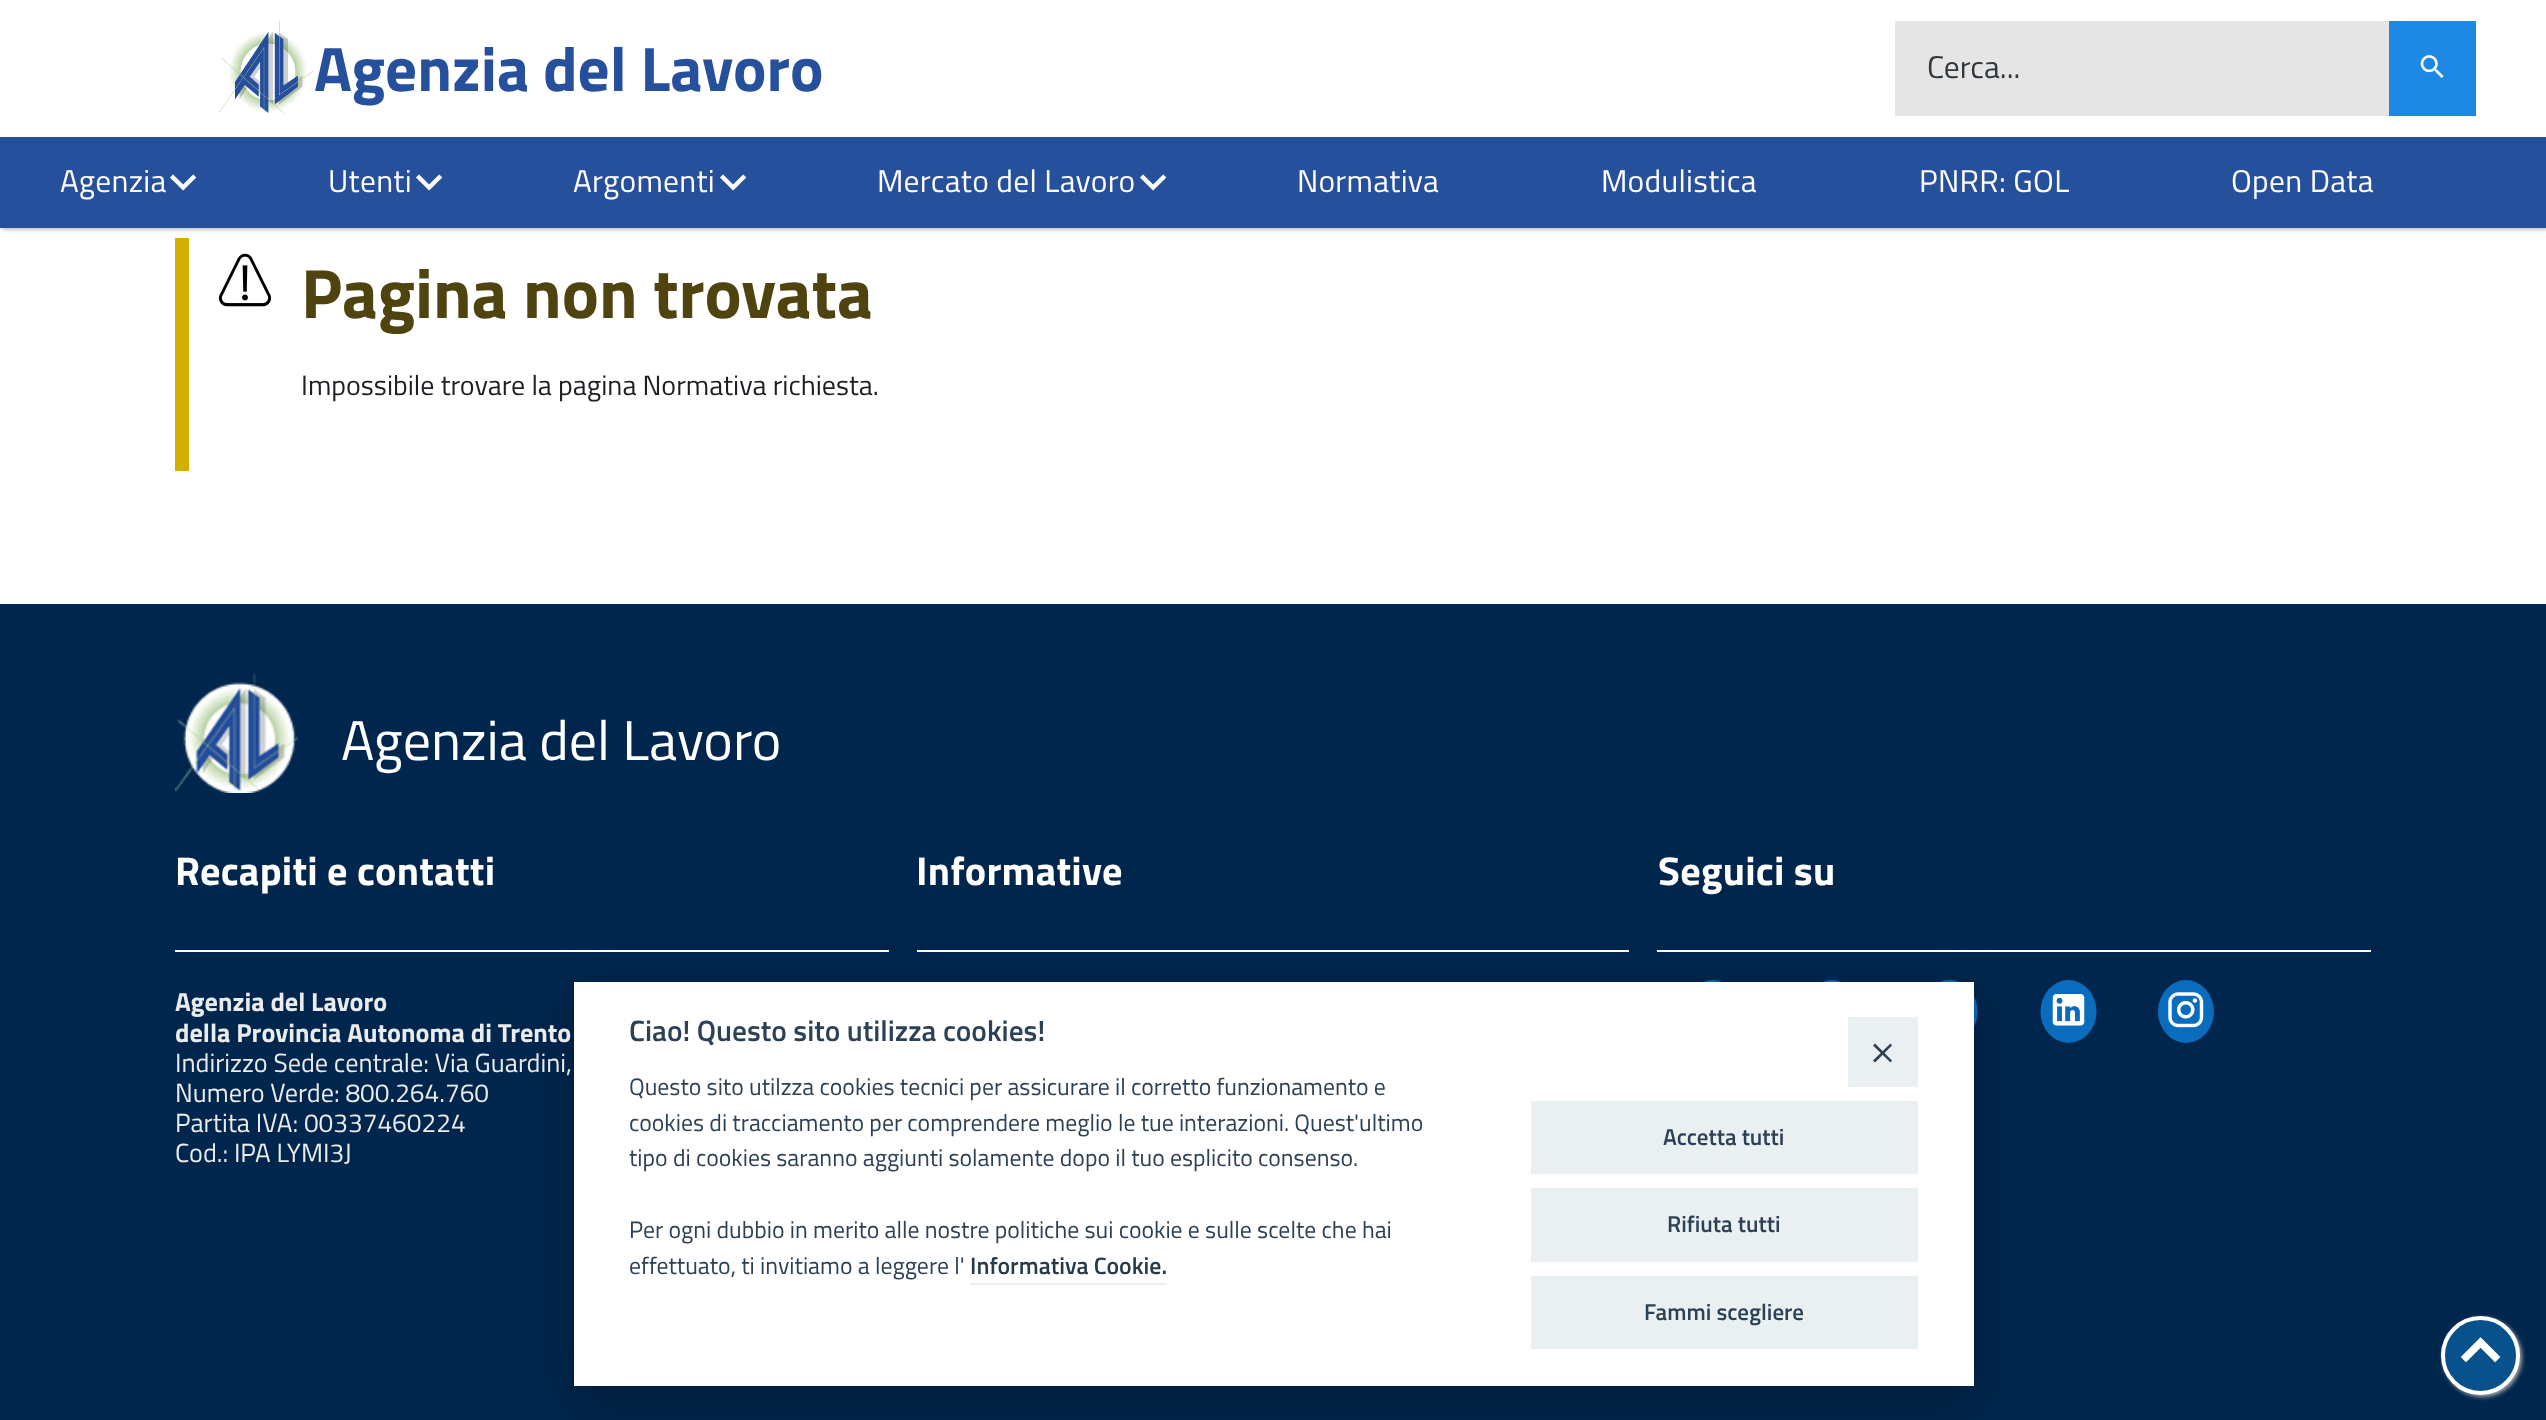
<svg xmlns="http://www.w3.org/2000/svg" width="2546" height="1420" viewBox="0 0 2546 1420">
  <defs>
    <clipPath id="clip1"><path d="M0 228h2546v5H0z"/></clipPath>
  </defs>
  <rect width="100%" height="100%" fill="#fff"/>
  <g clip-path="url(#clip1)">
    <path d="M2 2h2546v227H2z" fill="#aaa" filter="blur(2px)"/>
  </g>
  <image x="218" y="21" width="95" height="92" href="img/1.png"/>
  <path d="M1895 21h494v95H1895z" fill="#e5e5e5"/>
  <path d="M2389 21h87v95H2389z" fill="#1e88e5"/>
  <image x="2420" y="55" width="24" height="23" href="img/2.png"/>
  <path d="M0 137h2546v91H0z" fill="#27509c"/>
  <image x="218" y="253" width="54" height="54" href="img/3.png"/>
  <path d="M175 238h14v233H175z" fill="#d1ae00"/>
  <path d="M0 604h2546v816H0z" fill="#00264d"/>
  <image x="175" y="674" width="123" height="119" href="img/4.png"/>
  <path d="M175 950h714v2H175z" fill="#fff"/>
  <path d="M917 950h712v2H917z" fill="#fff"/>
  <path d="M1657 950h714v2H1657z" fill="#fff"/>
  <ellipse cx="1713" cy="1011.5" rx="28" ry="31.5" fill="#0a6cbd"/>
  <ellipse cx="1832" cy="1011.5" rx="28" ry="31.5" fill="#0a6cbd"/>
  <ellipse cx="1949.5" cy="1011.5" rx="28" ry="31.5" fill="#0a6cbd"/>
  <ellipse cx="2068.5" cy="1011.5" rx="28" ry="31.5" fill="#0a6cbd"/>
  <image x="2052" y="994" width="33" height="32" href="img/5.png"/>
  <ellipse cx="2186" cy="1011.5" rx="28" ry="31.5" fill="#0a6cbd"/>
  <image x="2168" y="992" width="36" height="36" href="img/6.png"/>
  <path d="M574 999h1400v405H574z" fill="#02020347" filter="blur(26px)"/>
  <path d="M574 982h1400v404H574z" fill="#fff"/>
  <path d="M970 1283h197v2H970z" fill="#eaeff2"/>
  <path d="M1848 1017h70v70H1848z" fill="#eaeff2"/>
  <path d="M1890.5 1043.5L1892 1045.5L1875 1062.5L1873 1060.5Z" fill="#2d4156"/>
  <path d="M1873 1045.5L1875 1043.5L1892 1060.5L1890.5 1062.5Z" fill="#2d4156"/>
  <path d="M1531 1101h387v73H1531z" fill="#eaeff2"/>
  <path d="M1531 1188h387v74H1531z" fill="#eaeff2"/>
  <path d="M1531 1276h387v73H1531z" fill="#eaeff2"/>
  <rect x="2443" y="1318" width="79" height="79" rx="39.5" fill="#aaa" filter="blur(2px)"/>
  <circle cx="2480.5" cy="1355.5" r="37.5" fill="#07518d" stroke="#fff" stroke-width="4"/>
  <text x="314" y="91" font-family="Titillium Web" font-size="63" font-weight="bold" fill="#27509c">Agenzia del Lavoro</text>
  <text x="1927" y="78" font-family="Titillium Web" font-size="31.5" fill="#30373d">Cerca...</text>
  <text x="60" y="192" font-family="Titillium Web" font-size="31.5" letter-spacing="0.3" fill="#fff">Agenzia</text>
  <text x="170" y="194" font-family="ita" font-size="26.25" letter-spacing="0.3" fill="#fff">⏶</text>
  <text x="328" y="192" font-family="Titillium Web" font-size="31.5" letter-spacing="0.3" fill="#fff">Utenti</text>
  <text x="416" y="194" font-family="ita" font-size="26.25" letter-spacing="0.3" fill="#fff">⏶</text>
  <text x="573" y="192" font-family="Titillium Web" font-size="31.5" letter-spacing="0.3" fill="#fff">Argomenti</text>
  <text x="720" y="194" font-family="ita" font-size="26.25" letter-spacing="0.3" fill="#fff">⏶</text>
  <text x="877" y="192" font-family="Titillium Web" font-size="31.5" letter-spacing="0.3" fill="#fff">Mercato del Lavoro</text>
  <text x="1140" y="194" font-family="ita" font-size="26.25" letter-spacing="0.3" fill="#fff">⏶</text>
  <g font-family="Titillium Web" font-size="31.5" letter-spacing="0.3" fill="#fff">
    <text x="1297" y="192">Normativa</text>
    <text x="1601" y="192">Modulistica</text>
    <text x="1919" y="192">PNRR: GOL</text>
    <text x="2231" y="192">Open Data</text>
  </g>
  <text x="301" y="318" font-family="Titillium Web" font-size="70" font-weight="bold" fill="#4f4310">Pagina non trovata</text>
  <text x="301" y="395" font-family="Titillium Web" font-size="28" fill="#1c2024">Impossibile trovare la pagina Normativa richiesta.</text>
  <text x="341" y="760" font-family="Titillium Web" font-size="56" fill="#fff">Agenzia del Lavoro</text>
  <text x="175" y="885" font-family="Titillium Web" font-size="40.25" font-weight="bold" letter-spacing="0.25" fill="#fff">Recapiti e contatti</text>
  <g font-family="Titillium Web" font-size="26.25" font-weight="bold" fill="#eaebec">
    <text x="175" y="1011">Agenzia del Lavoro</text>
    <text x="175" y="1042">della Provincia Autonoma di Trento</text>
  </g>
  <g font-family="Titillium Web" font-size="26.25" fill="#eaebec">
    <text x="175" y="1072">Indirizzo Sede centrale: Via Guardini,</text>
    <text x="175" y="1102">Numero Verde: 800.264.760</text>
    <text x="175" y="1132">Partita IVA: 00337460224</text>
    <text x="175" y="1162">Cod.: IPA LYMI3J</text>
  </g>
  <g font-family="Titillium Web" font-size="40.25" font-weight="bold" letter-spacing="0.25" fill="#fff">
    <text x="916" y="885">Informative</text>
    <text x="1658" y="885">Seguici su</text>
  </g>
  <text x="629" y="1041" font-family="Titillium Web" font-size="29.4" font-weight="600" fill="#2d4156">Ciao! Questo sito utilizza cookies!</text>
  <g font-family="Titillium Web" font-size="23.8" fill="#2d4156">
    <text x="629" y="1095">Questo sito utilzza cookies tecnici per assicurare il corretto funzionamento e</text>
    <text x="629" y="1131">cookies di tracciamento per comprendere meglio le tue interazioni. Quest'ultimo</text>
    <text x="629" y="1166">tipo di cookies saranno aggiunti solamente dopo il tuo esplicito consenso.</text>
    <text x="629" y="1238">Per ogni dubbio in merito alle nostre politiche sui cookie e sulle scelte che hai</text>
    <text x="629" y="1274">effettuato, ti invitiamo a leggere l'</text>
  </g>
  <text x="970" y="1274" font-family="Titillium Web" font-size="23.8" font-weight="600" fill="#253b48">Informativa Cookie.</text>
  <g font-family="Titillium Web" font-size="23" font-weight="600" fill="#2d4156">
    <text x="1663" y="1145">Accetta tutti</text>
    <text x="1667" y="1232">Rifiuta tutti</text>
    <text x="1644" y="1320">Fammi scegliere</text>
  </g>
  <text x="2461" y="1367" font-family="ita" font-size="38" font-weight="bold" fill="#fff">⏷</text>
</svg>
